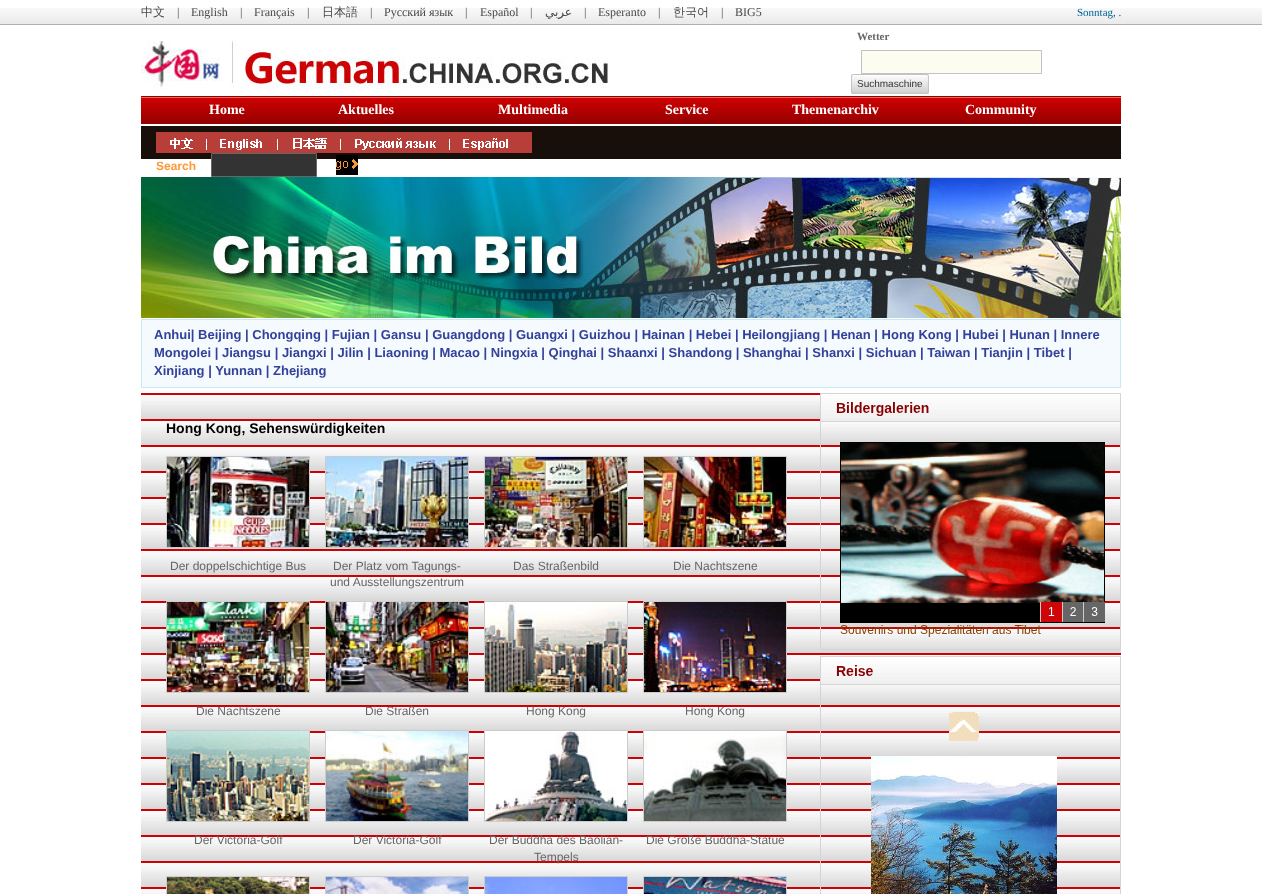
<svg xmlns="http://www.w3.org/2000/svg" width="1262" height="894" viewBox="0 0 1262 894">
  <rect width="100%" height="100%" fill="#fff"/>
  <image x="0" y="8" width="1262" height="17" href="img/1.png"/>
  <image x="141" y="41" width="468" height="48" href="img/2.png"/>
  <path d="M861.5 50.5h180v23H861.5z" fill="#fdfcf0" stroke="#c2c2c2"/>
  <image x="851" y="74" width="78" height="20" href="img/3.png"/>
  <image x="141" y="96" width="980" height="28" href="img/4.png"/>
  <path d="M141 126h980v33H141z" fill="#180e0a"/>
  <image x="156" y="132" width="376" height="21" href="img/5.png"/>
  <path d="M211.5 153.5h105v23H211.5z" fill="#333" stroke="#666"/>
  <image x="336" y="155" width="22" height="20" href="img/6.png"/>
  <image x="141" y="177" width="980" height="141" href="img/7.png"/>
  <path d="M141.5 319.5h979v68H141.5z" fill="#f5fafe" stroke="#c6eaf4"/>
  <image x="141" y="393" width="980" height="501" href="img/8.png"/>
  <path d="M166.5 456.5h143v91H166.5z" fill="none" stroke="#ccc"/>
  <image x="167" y="457" width="142" height="90" href="img/9.png"/>
  <path d="M325.5 456.5h143v91H325.5z" fill="none" stroke="#ccc"/>
  <image x="326" y="457" width="142" height="90" href="img/10.png"/>
  <path d="M484.5 456.5h143v91H484.5z" fill="none" stroke="#ccc"/>
  <image x="485" y="457" width="142" height="90" href="img/11.png"/>
  <path d="M643.5 456.5h143v91H643.5z" fill="none" stroke="#ccc"/>
  <image x="644" y="457" width="142" height="90" href="img/12.png"/>
  <path d="M166.5 601.5h143v91H166.5z" fill="none" stroke="#ccc"/>
  <image x="167" y="602" width="142" height="90" href="img/13.png"/>
  <path d="M325.5 601.5h143v91H325.5z" fill="none" stroke="#ccc"/>
  <image x="326" y="602" width="142" height="90" href="img/14.png"/>
  <path d="M484.5 601.5h143v91H484.5z" fill="none" stroke="#ccc"/>
  <image x="485" y="602" width="142" height="90" href="img/15.png"/>
  <path d="M643.5 601.5h143v91H643.5z" fill="none" stroke="#ccc"/>
  <image x="644" y="602" width="142" height="90" href="img/16.png"/>
  <path d="M166.5 730.5h143v91H166.5z" fill="none" stroke="#ccc"/>
  <image x="167" y="731" width="142" height="90" href="img/17.png"/>
  <path d="M325.5 730.5h143v91H325.5z" fill="none" stroke="#ccc"/>
  <image x="326" y="731" width="142" height="90" href="img/18.png"/>
  <path d="M484.5 730.5h143v91H484.5z" fill="none" stroke="#ccc"/>
  <image x="485" y="731" width="142" height="90" href="img/19.png"/>
  <path d="M643.5 730.5h143v91H643.5z" fill="none" stroke="#ccc"/>
  <image x="644" y="731" width="142" height="90" href="img/20.png"/>
  <path d="M166.5 876.5h143v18H166.5z" fill="none" stroke="#ccc"/>
  <image x="167" y="877" width="142" height="17" href="img/21.png"/>
  <path d="M325.5 876.5h143v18H325.5z" fill="none" stroke="#ccc"/>
  <image x="326" y="877" width="142" height="17" href="img/22.png"/>
  <path d="M484.5 876.5h143v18H484.5z" fill="none" stroke="#ccc"/>
  <image x="485" y="877" width="142" height="17" href="img/23.png"/>
  <path d="M643.5 876.5h143v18H643.5z" fill="none" stroke="#ccc"/>
  <image x="644" y="877" width="142" height="17" href="img/24.png"/>
  <image x="820" y="393" width="301" height="501" href="img/25.png"/>
  <text x="141" y="16" font-family="WenQuanYi Zen Hei" font-size="12" font-weight="500" fill="#494949">中文</text>
  <g font-family="Liberation Serif" font-size="12" fill="#494949">
    <text x="177" y="16">|</text>
    <text x="191" y="16">English</text>
    <text x="240" y="16">|</text>
    <text x="254" y="16">Français</text>
    <text x="307" y="16">|</text>
  </g>
  <text x="322" y="16" font-family="WenQuanYi Zen Hei" font-size="12" font-weight="500" fill="#494949">日本語</text>
  <g font-family="Liberation Serif" font-size="12" fill="#494949">
    <text x="370" y="16">|</text>
    <text x="384" y="16">Русский язык</text>
    <text x="465" y="16">|</text>
    <text x="480" y="16">Español</text>
    <text x="530" y="16">|</text>
  </g>
  <text x="572" y="16" font-family="DejaVu Sans" font-size="12" direction="rtl" fill="#494949">عربي</text>
  <g font-family="Liberation Serif" font-size="12" fill="#494949">
    <text x="584" y="16">|</text>
    <text x="598" y="16">Esperanto</text>
    <text x="658" y="16">|</text>
  </g>
  <text x="673" y="16" font-family="WenQuanYi Zen Hei" font-size="12" font-weight="500" fill="#494949">한국어</text>
  <g font-family="Liberation Serif" font-size="12" fill="#494949">
    <text x="721" y="16">|</text>
    <text x="735" y="16">BIG5</text>
  </g>
  <text x="1077" y="16" font-family="Liberation Serif" font-size="11" fill="#069">Sonntag, .</text>
  <text x="857" y="40" font-family="Liberation Serif" font-size="11" font-weight="bold" fill="#666">Wetter</text>
  <text x="857" y="87" font-family="Liberation Sans" font-size="10" fill="#333">Suchmaschine</text>
  <g font-family="Liberation Serif" font-size="14" font-weight="bold" fill="#fff">
    <text x="209" y="114">Home</text>
    <text x="338" y="114">Aktuelles</text>
    <text x="498" y="114">Multimedia</text>
    <text x="665" y="114">Service</text>
    <text x="792" y="114">Themenarchiv</text>
    <text x="965" y="114">Community</text>
  </g>
  <text x="156" y="170" font-family="Liberation Sans" font-size="12" font-weight="bold" fill="#ff9935">Search</text>
  <g font-family="Liberation Sans" font-size="13" font-weight="bold" fill="#32429a">
    <text x="154" y="339">Anhui| Beijing | Chongqing | Fujian | Gansu | Guangdong | Guangxi | Guizhou | Hainan | Hebei | Heilongjiang | Henan | Hong Kong | Hubei | Hunan | Innere</text>
    <text x="154" y="357">Mongolei | Jiangsu | Jiangxi | Jilin | Liaoning | Macao | Ningxia | Qinghai | Shaanxi | Shandong | Shanghai | Shanxi | Sichuan | Taiwan | Tianjin | Tibet |</text>
    <text x="154" y="375">Xinjiang | Yunnan | Zhejiang</text>
  </g>
  <text x="166" y="433" font-family="Liberation Sans" font-size="14" font-weight="bold" fill="#000">Hong Kong, Sehenswürdigkeiten</text>
  <g font-family="Liberation Sans" font-size="12" fill="#666">
    <text x="170" y="570">Der doppelschichtige Bus</text>
    <text x="333" y="570">Der Platz vom Tagungs-</text>
    <text x="330" y="586">und Ausstellungszentrum</text>
    <text x="513" y="570">Das Straßenbild</text>
    <text x="673" y="570">Die Nachtszene</text>
    <text x="196" y="715">Die Nachtszene</text>
    <text x="365" y="715">Die Straßen</text>
    <text x="526" y="715">Hong Kong</text>
    <text x="685" y="715">Hong Kong</text>
    <text x="194" y="844">Der Victoria-Golf</text>
    <text x="353" y="844">Der Victoria-Golf</text>
    <text x="489" y="844">Der Buddha des Baolian-</text>
    <text x="534" y="861">Tempels</text>
    <text x="646" y="844">Die Große Buddha-Statue</text>
  </g>
</svg>
